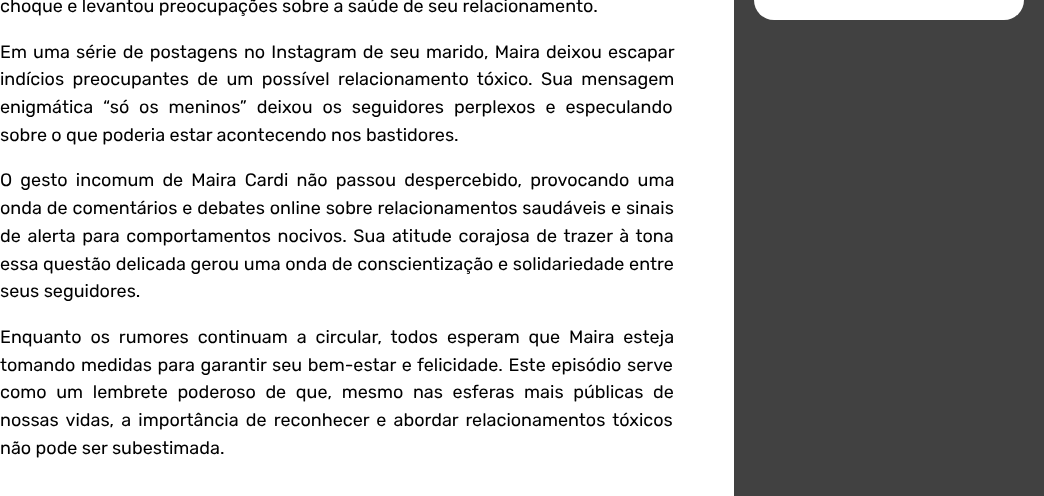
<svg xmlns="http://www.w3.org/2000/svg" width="1044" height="496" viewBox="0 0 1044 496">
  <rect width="100%" height="100%" fill="#fff"/>
  <path d="M734 0h310v496H734z" fill="#414141"/>
  <rect x="754" y="-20" width="270" height="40" rx="20" fill="#fff"/>
  <g font-family="Rubik" font-size="18" fill="#000">
    <text x="0" y="12">choque e levantou preocupações sobre a saúde de seu relacionamento.</text>
    <text x="0" y="58" word-spacing="1.75">Em uma série de postagens no Instagram de seu marido, Maira deixou escapar</text>
    <text x="0" y="85" word-spacing="4">indícios preocupantes de um possível relacionamento tóxico. Sua mensagem</text>
    <text x="0" y="113" word-spacing="5.5">enigmática “só os meninos” deixou os seguidores perplexos e especulando</text>
    <text x="0" y="141">sobre o que poderia estar acontecendo nos bastidores.</text>
    <text x="0" y="186" word-spacing="3.75">O gesto incomum de Maira Cardi não passou despercebido, provocando uma</text>
    <text x="0" y="214" word-spacing="0.5">onda de comentários e debates online sobre relacionamentos saudáveis e sinais</text>
    <text x="0" y="242" word-spacing="2.25">de alerta para comportamentos nocivos. Sua atitude corajosa de trazer à tona</text>
    <text x="0" y="270" word-spacing="0.25">essa questão delicada gerou uma onda de conscientização e solidariedade entre</text>
    <text x="0" y="297">seus seguidores.</text>
    <text x="0" y="343" word-spacing="4.5">Enquanto os rumores continuam a circular, todos esperam que Maira esteja</text>
    <text x="0" y="371" word-spacing="1.25">tomando medidas para garantir seu bem-estar e felicidade. Este episódio serve</text>
    <text x="0" y="398" word-spacing="5.25">como um lembrete poderoso de que, mesmo nas esferas mais públicas de</text>
    <text x="0" y="426" word-spacing="2.75">nossas vidas, a importância de reconhecer e abordar relacionamentos tóxicos</text>
    <text x="0" y="454">não pode ser subestimada.</text>
  </g>
</svg>
